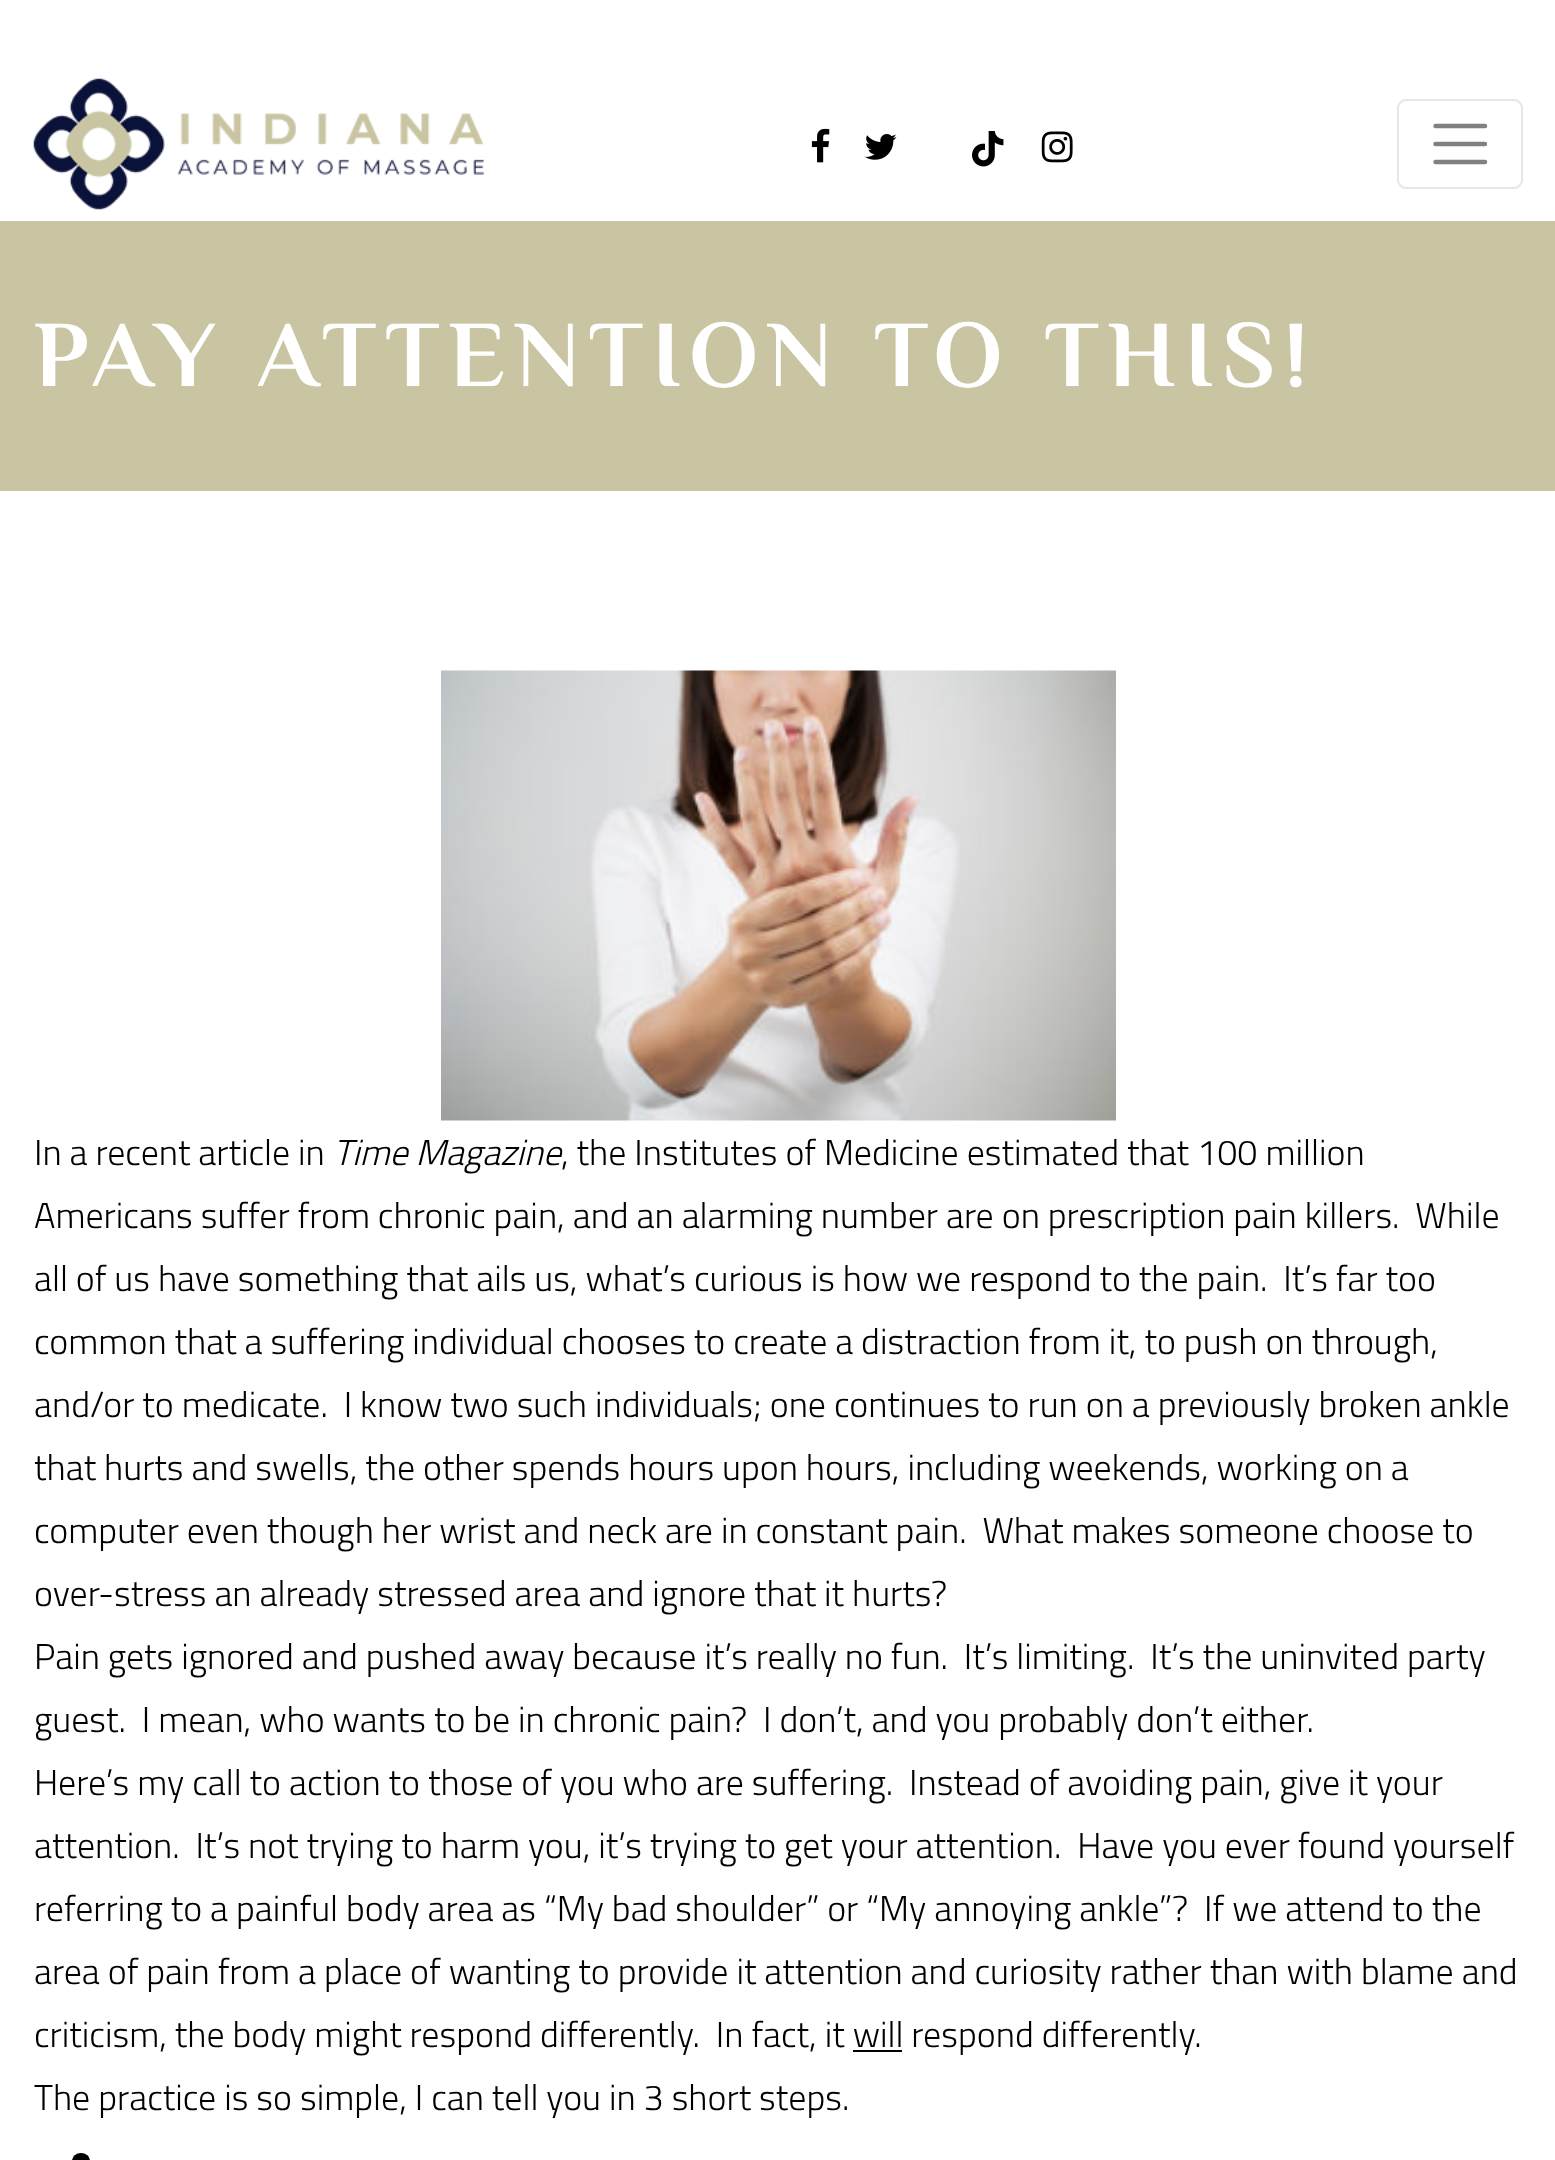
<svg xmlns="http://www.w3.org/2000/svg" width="1555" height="2160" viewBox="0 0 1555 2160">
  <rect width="100%" height="100%" fill="#fff"/>
  <image x="33" y="78" width="451" height="132" href="img/1.png"/>
  <image x="811" y="128" width="19" height="35" href="img/2.png"/>
  <image x="865" y="134" width="32" height="26" href="img/3.png"/>
  <image x="972" y="131" width="32" height="36" href="img/4.png"/>
  <image x="1041" y="131" width="32" height="32" href="img/5.png"/>
  <rect x="1398" y="100" width="124" height="88" rx="8" fill="none" stroke="#e6e6e6" stroke-width="2"/>
  <path d="M1435.5 126H1485M1435.5 144H1485M1435.5 162H1485" fill="none" stroke="#808080" stroke-width="4.5" stroke-linecap="round"/>
  <path d="M0 221h1555v270H0z" fill="#c9c5a2"/>
  <image x="441" y="670" width="675" height="451" href="img/6.png"/>
  <path d="M853 2050h49v2H853z" fill="#000"/>
  <rect x="72" y="2153" width="18" height="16" rx="9" fill="#000"/>
  <text x="34" y="386" font-family="Philosopher" font-size="94.5" font-weight="bold" letter-spacing="9" fill="#fff">PAY ATTENTION TO THIS!</text>
  <text x="34" y="1165" font-family="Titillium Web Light" font-size="36" font-weight="300" fill="#000">In a recent article in</text>
  <text x="333" y="1165" font-family="Titillium Web Light" font-size="36" font-weight="300" font-style="italic" fill="#000">Time Magazine</text>
  <g font-family="Titillium Web Light" font-size="36" font-weight="300" fill="#000">
    <text x="561" y="1165">, the Institutes of Medicine estimated that 100 million</text>
    <text x="34" y="1228" xml:space="preserve">Americans suffer from chronic pain, and an alarming number are on prescription pain killers.  While</text>
    <text x="34" y="1291" xml:space="preserve">all of us have something that ails us, what’s curious is how we respond to the pain.  It’s far too</text>
    <text x="34" y="1354">common that a suffering individual chooses to create a distraction from it, to push on through,</text>
    <text x="34" y="1417" xml:space="preserve">and/or to medicate.  I know two such individuals; one continues to run on a previously broken ankle</text>
    <text x="34" y="1480">that hurts and swells, the other spends hours upon hours, including weekends, working on a</text>
    <text x="34" y="1543" xml:space="preserve">computer even though her wrist and neck are in constant pain.  What makes someone choose to</text>
    <text x="34" y="1606">over-stress an already stressed area and ignore that it hurts?</text>
    <text x="34" y="1669" xml:space="preserve">Pain gets ignored and pushed away because it’s really no fun.  It’s limiting.  It’s the uninvited party</text>
    <text x="34" y="1732" xml:space="preserve">guest.  I mean, who wants to be in chronic pain?  I don’t, and you probably don’t either.</text>
    <text x="34" y="1795" xml:space="preserve">Here’s my call to action to those of you who are suffering.  Instead of avoiding pain, give it your</text>
    <text x="34" y="1858" xml:space="preserve">attention.  It’s not trying to harm you, it’s trying to get your attention.  Have you ever found yourself</text>
    <text x="34" y="1921" xml:space="preserve">referring to a painful body area as “My bad shoulder” or “My annoying ankle”?  If we attend to the</text>
    <text x="34" y="1984">area of pain from a place of wanting to provide it attention and curiosity rather than with blame and</text>
    <text x="34" y="2047" xml:space="preserve">criticism, the body might respond differently.  In fact, it will respond differently.</text>
    <text x="34" y="2110">The practice is so simple, I can tell you in 3 short steps.</text>
  </g>
</svg>
